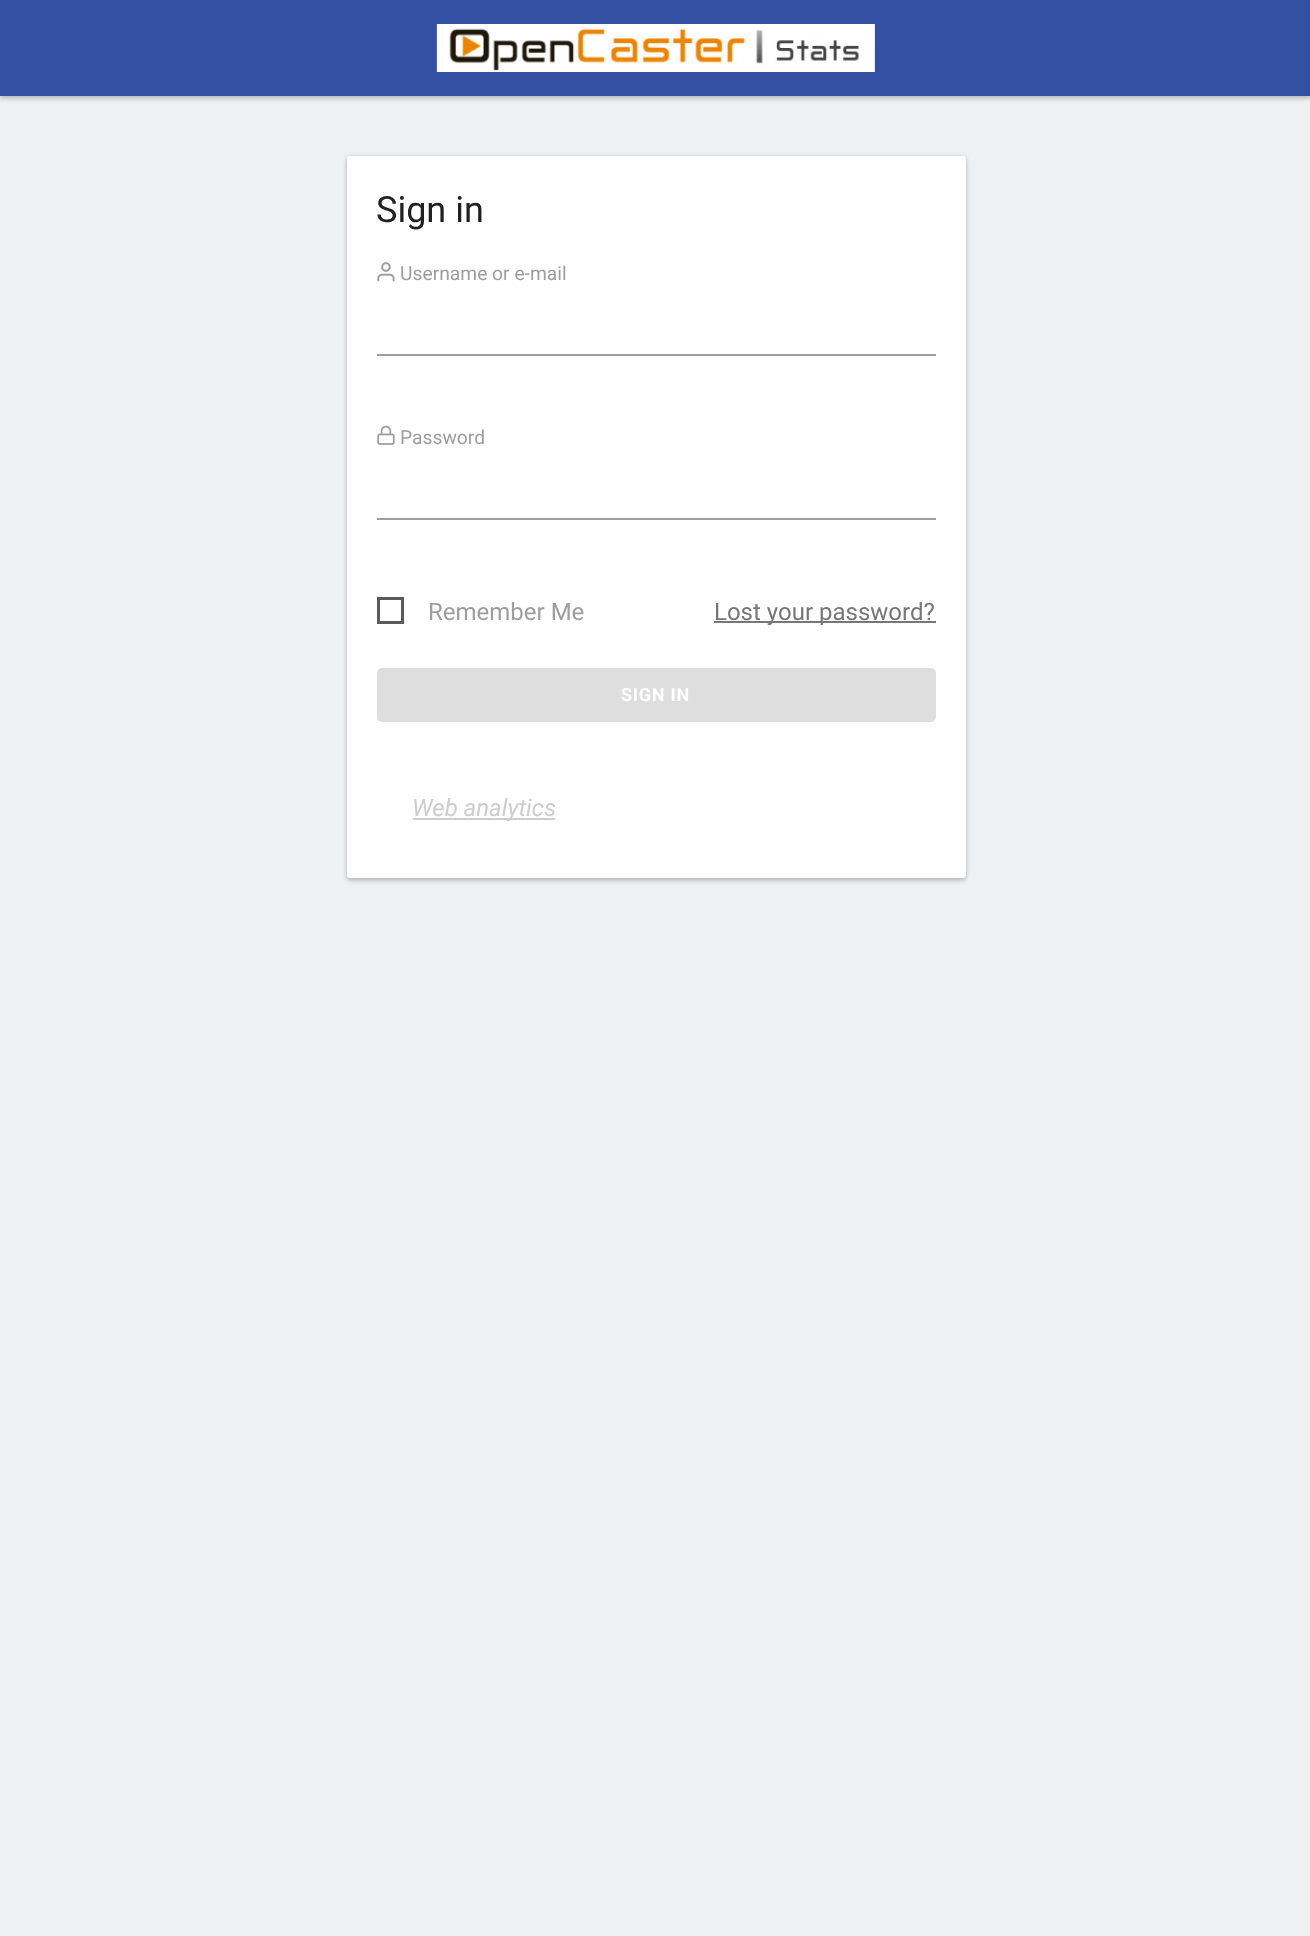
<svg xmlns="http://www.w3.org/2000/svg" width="1310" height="1936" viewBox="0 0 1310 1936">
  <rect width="100%" height="100%" fill="#eff0f1"/>
  <path d="M0 0h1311v96H0z" fill="#0000001f" filter="blur(2px)"/>
  <path d="M0 3h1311v96H0z" fill="#00000029" filter="blur(2px)"/>
  <path d="M0 0h1310v96H0z" fill="#3450a3"/>
  <image x="436" y="24" width="439" height="48" href="img/1.png"/>
  <rect x="347" y="156" width="619" height="722" rx="3" fill="#0000001f" filter="blur(2px)"/>
  <rect x="347" y="159" width="619" height="722" rx="3" fill="#00000029" filter="blur(2px)"/>
  <rect x="347" y="156" width="619" height="722" rx="3" fill="#fff"/>
  <image x="377" y="262" width="18" height="20" href="img/2.png"/>
  <path d="M377 354h559v2H377z" fill="#9e9e9e"/>
  <image x="377" y="425" width="18" height="20" href="img/3.png"/>
  <path d="M377 518h559v2H377z" fill="#9e9e9e"/>
  <path d="M378.5 598.5h24v24H378.5z" fill="none" stroke="#5a5a5a" stroke-width="3"/>
  <path d="M714 621h222v2H714z" fill="#777"/>
  <rect x="377" y="668" width="559" height="54" rx="5" fill="#dedede"/>
  <path d="M413 818h142v2H413z" fill="#cdcdcd"/>
  <text x="376" y="222" font-family="Roboto" font-size="36" fill="#212121">Sign in</text>
  <g font-family="Roboto" font-size="19.25" fill="#9e9e9e">
    <text x="400" y="280">Username or e-mail</text>
    <text x="400" y="444">Password</text>
  </g>
  <text x="428" y="620" font-family="Roboto" font-size="24" fill="#9e9e9e">Remember Me</text>
  <text x="714" y="620" font-family="Roboto" font-size="24" fill="#777">Lost your password?</text>
  <text x="621" y="701" font-family="Roboto" font-size="18" font-weight="bold" letter-spacing="0.75" fill="#fff">SIGN IN</text>
  <text x="412" y="816" font-family="Roboto" font-size="24" font-style="italic" fill="#cdcdcd">Web analytics</text>
</svg>
